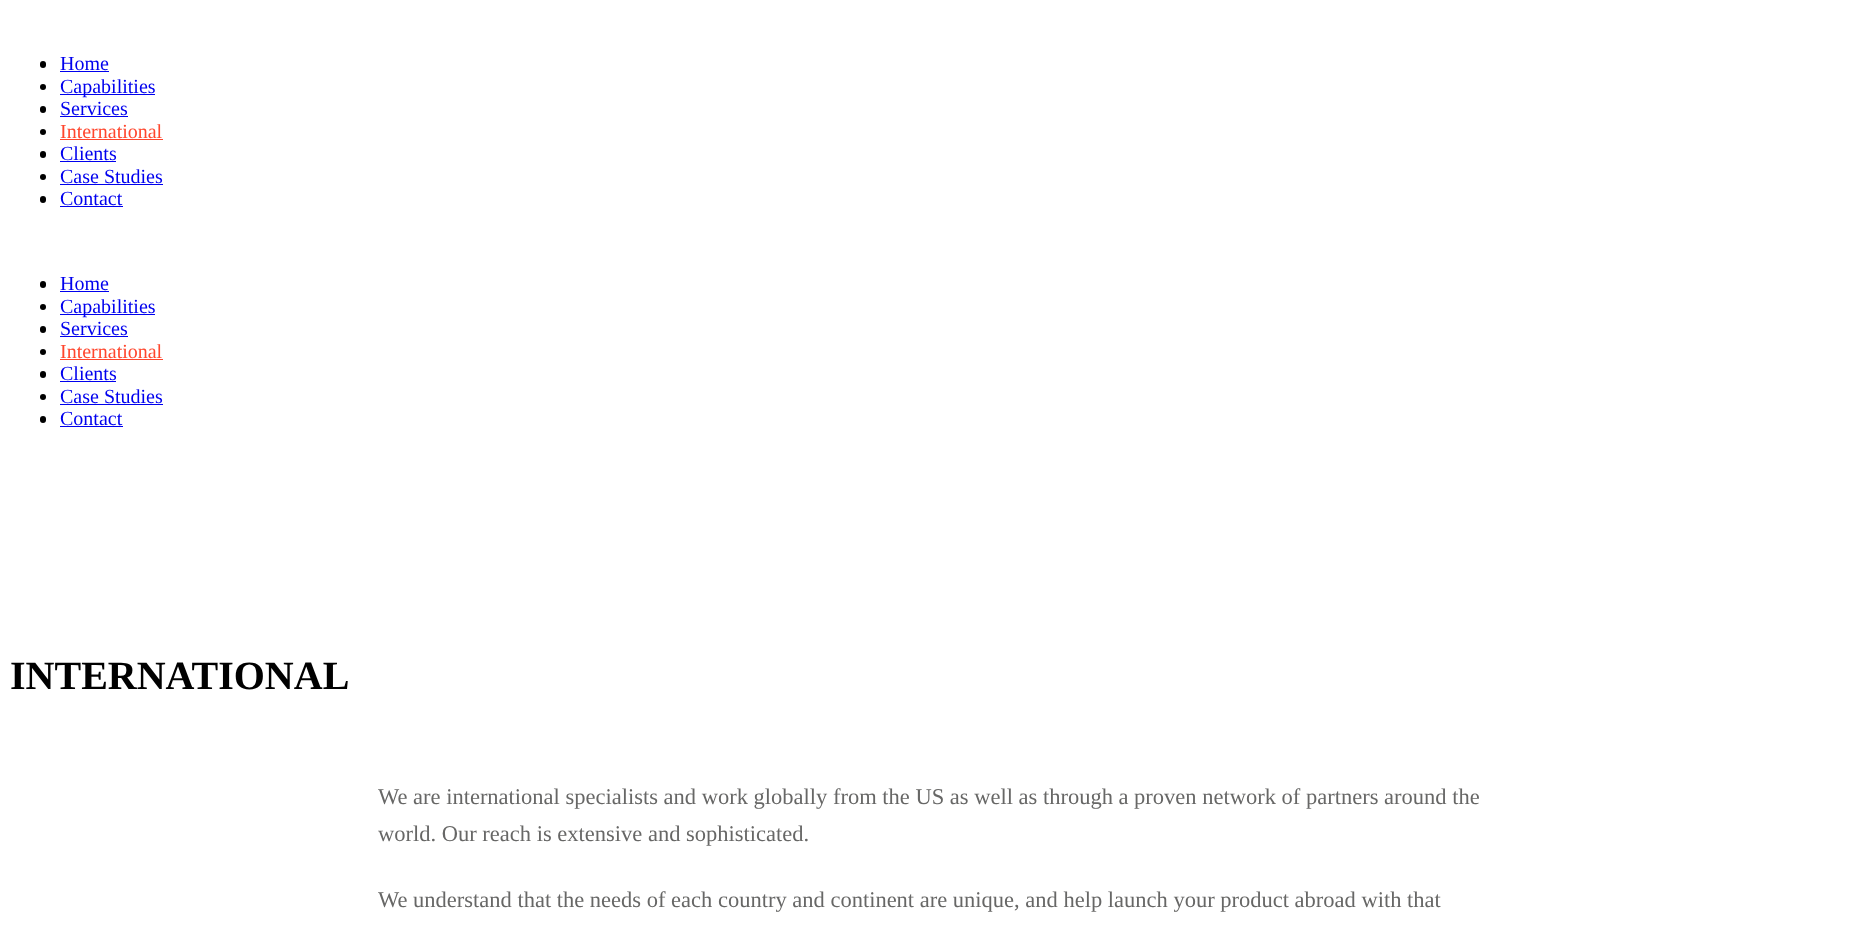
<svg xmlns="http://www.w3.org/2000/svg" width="1857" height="934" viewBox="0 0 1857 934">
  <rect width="100%" height="100%" fill="#fff"/>
  <rect x="40" y="61" width="6" height="7" rx="3" fill="#000"/>
  <path d="M60 71h49v1H60z" fill="#00e"/>
  <circle cx="43" cy="87" r="3" fill="#000"/>
  <path d="M60 94h95v1H60z" fill="#00e"/>
  <rect x="40" y="106" width="6" height="7" rx="3" fill="#000"/>
  <path d="M60 116h68v1H60z" fill="#00e"/>
  <circle cx="43" cy="132" r="3" fill="#000"/>
  <path d="M60 139h103v1H60z" fill="#ff462d"/>
  <rect x="40" y="151" width="6" height="7" rx="3" fill="#000"/>
  <path d="M60 161h56v1H60z" fill="#00e"/>
  <circle cx="43" cy="177" r="3" fill="#000"/>
  <path d="M60 184h103v1H60z" fill="#00e"/>
  <rect x="40" y="196" width="6" height="7" rx="3" fill="#000"/>
  <path d="M60 206h63v1H60z" fill="#00e"/>
  <rect x="40" y="281" width="6" height="7" rx="3" fill="#000"/>
  <path d="M60 291h49v1H60z" fill="#00e"/>
  <circle cx="43" cy="307" r="3" fill="#000"/>
  <path d="M60 314h95v1H60z" fill="#00e"/>
  <rect x="40" y="326" width="6" height="7" rx="3" fill="#000"/>
  <path d="M60 336h68v1H60z" fill="#00e"/>
  <circle cx="43" cy="352" r="3" fill="#000"/>
  <path d="M60 359h103v1H60z" fill="#ff462d"/>
  <rect x="40" y="371" width="6" height="7" rx="3" fill="#000"/>
  <path d="M60 381h56v1H60z" fill="#00e"/>
  <circle cx="43" cy="397" r="3" fill="#000"/>
  <path d="M60 404h103v1H60z" fill="#00e"/>
  <rect x="40" y="416" width="6" height="7" rx="3" fill="#000"/>
  <path d="M60 426h63v1H60z" fill="#00e"/>
  <g font-family="Liberation Serif" font-size="20" fill="#00e">
    <text x="60" y="70">Home</text>
    <text x="60" y="93">Capabilities</text>
    <text x="60" y="115">Services</text>
  </g>
  <text x="60" y="138" font-family="Liberation Serif" font-size="20" fill="#ff462d">International</text>
  <g font-family="Liberation Serif" font-size="20" fill="#00e">
    <text x="60" y="160">Clients</text>
    <text x="60" y="183">Case Studies</text>
    <text x="60" y="205">Contact</text>
    <text x="60" y="290">Home</text>
    <text x="60" y="313">Capabilities</text>
    <text x="60" y="335">Services</text>
  </g>
  <text x="60" y="358" font-family="Liberation Serif" font-size="20" fill="#ff462d">International</text>
  <g font-family="Liberation Serif" font-size="20" fill="#00e">
    <text x="60" y="380">Clients</text>
    <text x="60" y="403">Case Studies</text>
    <text x="60" y="425">Contact</text>
  </g>
  <text x="10" y="689" font-family="Liberation Serif" font-size="40" font-weight="bold" fill="#000">INTERNATIONAL</text>
  <g font-family="Liberation Serif" font-size="22.5" fill="#676766">
    <text x="378" y="804">We are international specialists and work globally from the US as well as through a proven network of partners around the</text>
    <text x="378" y="841">world. Our reach is extensive and sophisticated.</text>
    <text x="378" y="907">We understand that the needs of each country and continent are unique, and help launch your product abroad with that</text>
  </g>
</svg>
